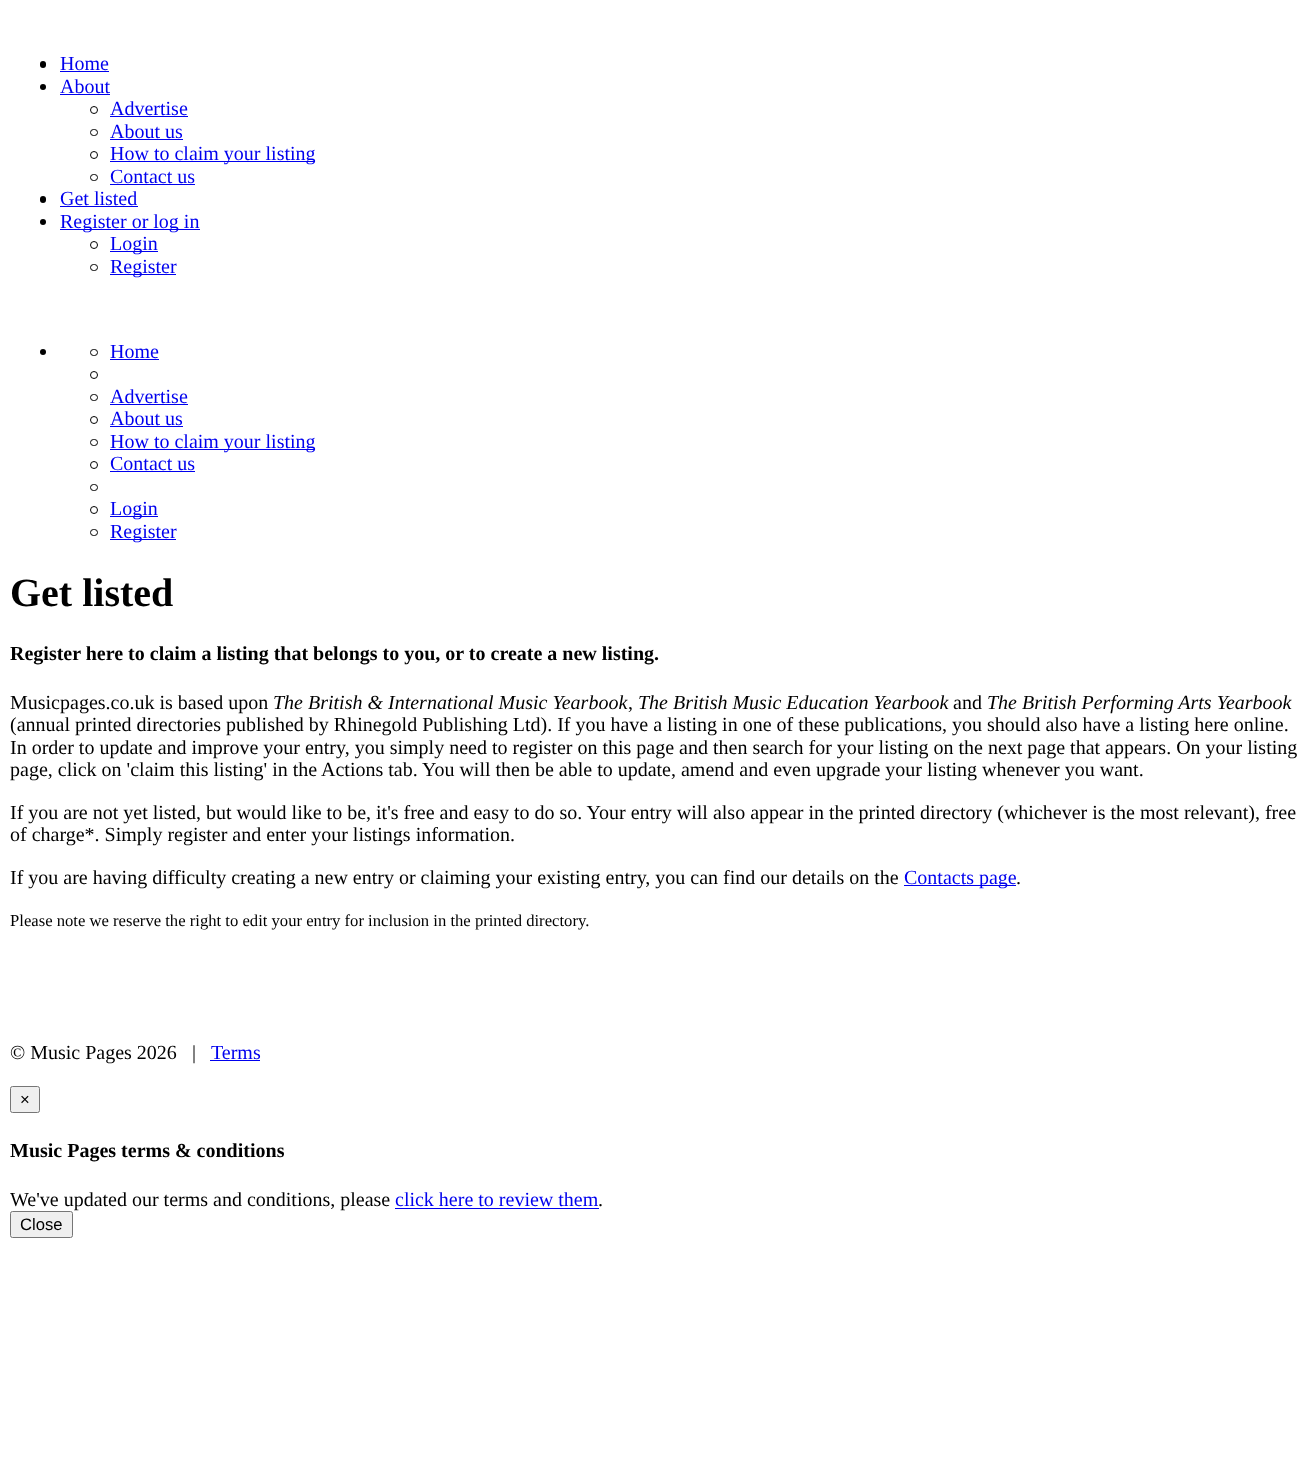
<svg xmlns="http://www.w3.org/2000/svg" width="1307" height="1467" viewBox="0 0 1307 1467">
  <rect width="100%" height="100%" fill="#fff"/>
  <rect x="40" y="61" width="6" height="7" rx="3" fill="#000"/>
  <path d="M60 71h49v1H60z" fill="#00e"/>
  <circle cx="43" cy="87" r="3" fill="#000"/>
  <path d="M60 94h50v1H60z" fill="#00e"/>
  <circle cx="94" cy="110" r="3.5" fill="none" stroke="#000"/>
  <path d="M110 116h78v1H110z" fill="#00e"/>
  <rect x="90.5" y="129.5" width="7" height="6" rx="3" fill="none" stroke="#000"/>
  <path d="M110 139h73v1H110z" fill="#00e"/>
  <circle cx="94" cy="155" r="3.5" fill="none" stroke="#000"/>
  <path d="M110 161h205v1H110z" fill="#00e"/>
  <rect x="90.5" y="174.5" width="7" height="6" rx="3" fill="none" stroke="#000"/>
  <path d="M110 184h85v1H110z" fill="#00e"/>
  <rect x="40" y="196" width="6" height="7" rx="3" fill="#000"/>
  <path d="M60 206h78v1H60z" fill="#00e"/>
  <circle cx="43" cy="222" r="3" fill="#000"/>
  <path d="M60 229h140v1H60z" fill="#00e"/>
  <circle cx="94" cy="245" r="3.5" fill="none" stroke="#000"/>
  <path d="M110 251h48v1H110z" fill="#00e"/>
  <rect x="90.5" y="264.5" width="7" height="6" rx="3" fill="none" stroke="#000"/>
  <path d="M110 274h66v1H110z" fill="#00e"/>
  <circle cx="43" cy="352" r="3" fill="#000"/>
  <rect x="90.5" y="349.5" width="7" height="6" rx="3" fill="none" stroke="#000"/>
  <path d="M110 359h49v1H110z" fill="#00e"/>
  <circle cx="94" cy="375" r="3.5" fill="none" stroke="#000"/>
  <rect x="90.5" y="394.5" width="7" height="6" rx="3" fill="none" stroke="#000"/>
  <path d="M110 404h78v1H110z" fill="#00e"/>
  <circle cx="94" cy="420" r="3.5" fill="none" stroke="#000"/>
  <path d="M110 426h73v1H110z" fill="#00e"/>
  <rect x="90.5" y="439.5" width="7" height="6" rx="3" fill="none" stroke="#000"/>
  <path d="M110 449h205v1H110z" fill="#00e"/>
  <circle cx="94" cy="465" r="3.5" fill="none" stroke="#000"/>
  <path d="M110 471h85v1H110z" fill="#00e"/>
  <rect x="90.5" y="484.5" width="7" height="6" rx="3" fill="none" stroke="#000"/>
  <circle cx="94" cy="510" r="3.5" fill="none" stroke="#000"/>
  <path d="M110 516h48v1H110z" fill="#00e"/>
  <rect x="90.5" y="529.5" width="7" height="6" rx="3" fill="none" stroke="#000"/>
  <path d="M110 539h66v1H110z" fill="#00e"/>
  <path d="M904 885h112v1H904z" fill="#00e"/>
  <path d="M210 1060h50v1H210z" fill="#00e"/>
  <rect x="10.5" y="1086.5" width="29" height="26" rx="2" fill="#efefef" stroke="#767676"/>
  <path d="M395 1208h204v1H395z" fill="#00e"/>
  <rect x="10.5" y="1211.5" width="62" height="26" rx="2" fill="#efefef" stroke="#767676"/>
  <g font-family="Liberation Serif" font-size="20" fill="#00e">
    <text x="60" y="70">Home</text>
    <text x="60" y="93">About</text>
    <text x="110" y="115">Advertise</text>
    <text x="110" y="138">About us</text>
    <text x="110" y="160">How to claim your listing</text>
    <text x="110" y="183">Contact us</text>
    <text x="60" y="205">Get listed</text>
    <text x="60" y="228">Register or log in</text>
    <text x="110" y="250">Login</text>
    <text x="110" y="273">Register</text>
    <text x="110" y="358">Home</text>
    <text x="110" y="403">Advertise</text>
    <text x="110" y="425">About us</text>
    <text x="110" y="448">How to claim your listing</text>
    <text x="110" y="470">Contact us</text>
    <text x="110" y="515">Login</text>
    <text x="110" y="538">Register</text>
  </g>
  <text x="10" y="606" font-family="Liberation Serif" font-size="40" font-weight="bold" fill="#000">Get listed</text>
  <text x="10" y="660" font-family="Liberation Serif" font-size="20" font-weight="bold" fill="#000">Register here to claim a listing that belongs to you, or to create a new listing.</text>
  <text x="10" y="709" font-family="Liberation Serif" font-size="20" fill="#000">Musicpages.co.uk is based upon</text>
  <text x="273" y="709" font-family="Liberation Serif" font-size="20" font-style="italic" fill="#000">The British &amp; International Music Yearbook</text>
  <text x="628" y="709" font-family="Liberation Serif" font-size="20" fill="#000">,</text>
  <text x="638" y="709" font-family="Liberation Serif" font-size="20" font-style="italic" fill="#000">The British Music Education Yearbook</text>
  <text x="953" y="709" font-family="Liberation Serif" font-size="20" fill="#000">and</text>
  <text x="987" y="709" font-family="Liberation Serif" font-size="20" font-style="italic" fill="#000">The British Performing Arts Yearbook</text>
  <g font-family="Liberation Serif" font-size="20" fill="#000">
    <text x="10" y="731">(annual printed directories published by Rhinegold Publishing Ltd). If you have a listing in one of these publications, you should also have a listing here online.</text>
    <text x="10" y="754">In order to update and improve your entry, you simply need to register on this page and then search for your listing on the next page that appears. On your listing</text>
    <text x="10" y="776">page, click on 'claim this listing' in the Actions tab. You will then be able to update, amend and even upgrade your listing whenever you want.</text>
    <text x="10" y="819">If you are not yet listed, but would like to be, it's free and easy to do so. Your entry will also appear in the printed directory (whichever is the most relevant), free</text>
    <text x="10" y="841">of charge*. Simply register and enter your listings information.</text>
    <text x="10" y="884">If you are having difficulty creating a new entry or claiming your existing entry, you can find our details on the</text>
  </g>
  <text x="904" y="884" font-family="Liberation Serif" font-size="20" fill="#00e">Contacts page</text>
  <text x="1016" y="884" font-family="Liberation Serif" font-size="20" fill="#000">.</text>
  <text x="10" y="926" font-family="Liberation Serif" font-size="16.65" fill="#000">Please note we reserve the right to edit your entry for inclusion in the printed directory.</text>
  <g font-family="Liberation Serif" font-size="20" fill="#000">
    <text x="10" y="1059">© Music Pages 2026</text>
    <text x="192" y="1059">|</text>
  </g>
  <text x="211" y="1059" font-family="Liberation Serif" font-size="20" fill="#00e">Terms</text>
  <text x="20" y="1105" font-family="Liberation Sans" font-size="16.65" fill="#000">×</text>
  <text x="10" y="1157" font-family="Liberation Serif" font-size="20" font-weight="bold" fill="#000">Music Pages terms &amp; conditions</text>
  <text x="10" y="1206" font-family="Liberation Serif" font-size="20" fill="#000">We've updated our terms and conditions, please</text>
  <text x="395" y="1206" font-family="Liberation Serif" font-size="20" fill="#00e">click here to review them</text>
  <text x="598" y="1206" font-family="Liberation Serif" font-size="20" fill="#000">.</text>
  <text x="20" y="1230" font-family="Liberation Sans" font-size="16.65" fill="#000">Close</text>
</svg>
